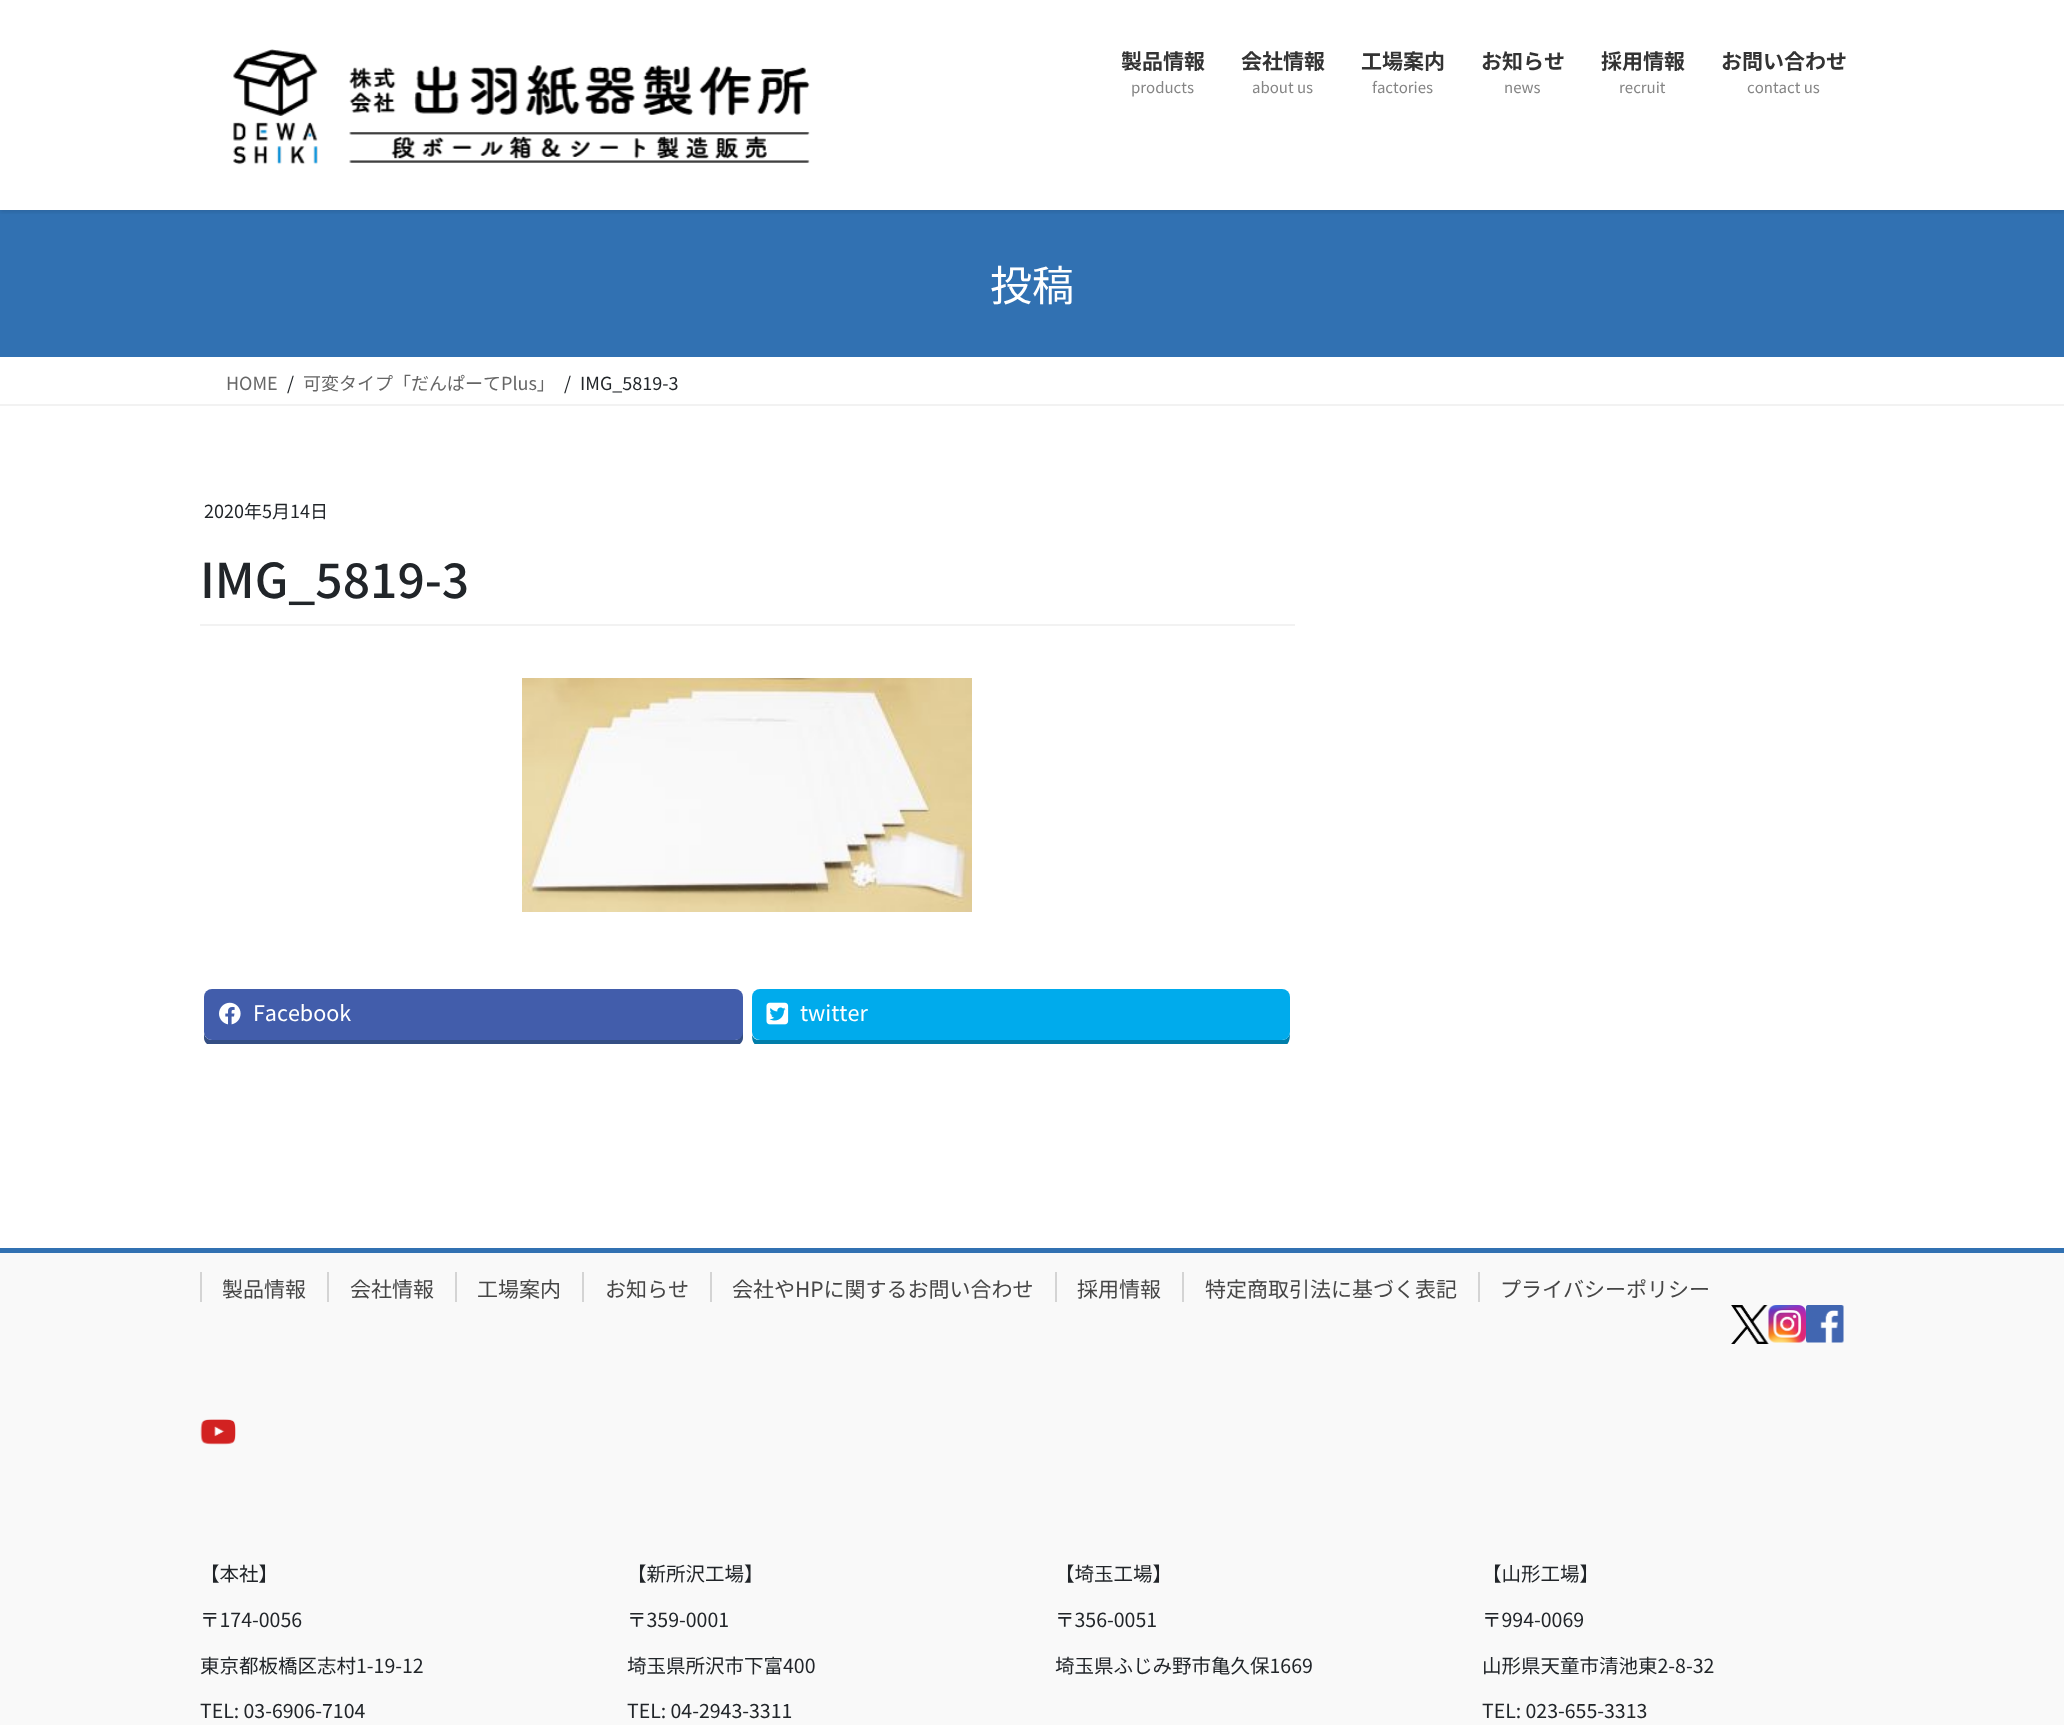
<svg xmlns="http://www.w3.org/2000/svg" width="2064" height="1725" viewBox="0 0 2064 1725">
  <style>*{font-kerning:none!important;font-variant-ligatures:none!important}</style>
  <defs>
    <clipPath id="clip1"><path d="M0 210h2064v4H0z"/></clipPath>
    <clipPath id="clip2"><path d="M200 984h1095v60H200z"/></clipPath>
  </defs>
  <rect width="100%" height="100%" fill="#fff"/>
  <path d="M0 210h2064v147H0z" fill="#3171b2"/>
  <g clip-path="url(#clip1)">
    <path d="M0 2h2064v210H0z" fill="#0000001a" filter="blur(2px)"/>
  </g>
  <image x="233" y="49" width="577" height="116" href="img/1.png"/>
  <path d="M0 404h2064v2H0z" fill="#f2f2f2"/>
  <path d="M200 624h1095v2H200z" fill="#f2f2f2"/>
  <image x="522" y="678" width="450" height="234" href="img/2.png"/>
  <g clip-path="url(#clip2)">
    <path d="M204 1032V1038C204 1042 208 1046 212 1046H735C739 1046 743 1042 743 1038V1003L742 1000V1032C742 1036 739 1040 735 1040H212C207 1040 204 1036 204 1032Z" fill="#344e84"/>
  </g>
  <rect x="204" y="989" width="539" height="51" rx="8" fill="#425dab"/>
  <image x="219" y="1002" width="22" height="23" href="img/3.png"/>
  <g clip-path="url(#clip2)">
    <path d="M752 1035C752 1040 753 1046 760 1046H1282C1290 1046 1290 1038 1290 1032C1290 1036 1287 1040 1282 1040H759C756 1040 753 1038 752 1035Z" fill="#007eaa"/>
  </g>
  <rect x="752" y="989" width="538" height="51" rx="8" fill="#00abec"/>
  <image x="766" y="1002" width="23" height="23" href="img/4.png"/>
  <path d="M0 1253h2064v472H0z" fill="#f9f9f9"/>
  <path d="M0 1248h2064v5H0z" fill="#3171b2"/>
  <path d="M200 1272h2v30H200z" fill="#d4d4d4"/>
  <path d="M327 1272h2v30H327z" fill="#d4d4d4"/>
  <path d="M455 1272h2v30H455z" fill="#d4d4d4"/>
  <path d="M582 1272h2v30H582z" fill="#d4d4d4"/>
  <path d="M710 1272h2v30H710z" fill="#d4d4d4"/>
  <path d="M1055 1272h2v30H1055z" fill="#d4d4d4"/>
  <path d="M1182 1272h2v30H1182z" fill="#d4d4d4"/>
  <path d="M1478 1272h2v30H1478z" fill="#d4d4d4"/>
  <image x="1731" y="1305" width="38" height="39" href="img/5.png"/>
  <image x="1768" y="1305" width="38" height="38" href="img/6.png"/>
  <image x="1806" y="1305" width="38" height="38" href="img/7.png"/>
  <image x="200" y="1419" width="36" height="26" href="img/8.png"/>
  <text x="1121" y="69" font-family="Noto Sans JP" font-size="21" font-weight="bold" fill="#333">製品情報</text>
  <text x="1131" y="93" font-family="Noto Sans JP" font-size="15" fill="#858585">products</text>
  <text x="1241" y="69" font-family="Noto Sans JP" font-size="21" font-weight="bold" fill="#333">会社情報</text>
  <text x="1252" y="93" font-family="Noto Sans JP" font-size="15" fill="#858585">about us</text>
  <text x="1361" y="69" font-family="Noto Sans JP" font-size="21" font-weight="bold" fill="#333">工場案内</text>
  <text x="1372" y="93" font-family="Noto Sans JP" font-size="15" fill="#858585">factories</text>
  <text x="1481" y="69" font-family="Noto Sans JP" font-size="21" font-weight="bold" fill="#333">お知らせ</text>
  <text x="1504" y="93" font-family="Noto Sans JP" font-size="15" fill="#858585">news</text>
  <text x="1601" y="69" font-family="Noto Sans JP" font-size="21" font-weight="bold" fill="#333">採用情報</text>
  <text x="1619" y="93" font-family="Noto Sans JP" font-size="15" fill="#858585">recruit</text>
  <text x="1721" y="69" font-family="Noto Sans JP" font-size="21" font-weight="bold" fill="#333">お問い合わせ</text>
  <text x="1747" y="93" font-family="Noto Sans JP" font-size="15" fill="#858585">contact us</text>
  <text x="990" y="301" font-family="Noto Sans JP" font-size="42" fill="#fff">投稿</text>
  <text x="226" y="390" font-family="Noto Sans JP" font-size="18" fill="#666">HOME</text>
  <text x="287" y="390" font-family="Noto Sans JP" font-size="18" fill="#212529">/</text>
  <text x="303" y="390" font-family="Noto Sans JP" font-size="18" fill="#666">可変タイプ「だんぱーてPlus」</text>
  <g font-family="Noto Sans JP" font-size="18" fill="#212529">
    <text x="564" y="390">/</text>
    <text x="580" y="390">IMG_5819-3</text>
    <text x="204" y="518">2020年5月14日</text>
  </g>
  <text x="200" y="598" font-family="Noto Sans JP" font-size="48" font-weight="500" fill="#212529">IMG_5819-3</text>
  <g font-family="Noto Sans JP" font-size="21.5" fill="#fff">
    <text x="253" y="1021">Facebook</text>
    <text x="800" y="1021">twitter</text>
  </g>
  <g font-family="Noto Sans JP" font-size="21" fill="#464646">
    <text x="222" y="1297">製品情報</text>
    <text x="350" y="1297">会社情報</text>
    <text x="477" y="1297">工場案内</text>
    <text x="605" y="1297">お知らせ</text>
    <text x="732" y="1297">会社やHPに関するお問い合わせ</text>
    <text x="1077" y="1297">採用情報</text>
    <text x="1205" y="1297">特定商取引法に基づく表記</text>
    <text x="1500" y="1297">プライバシーポリシー</text>
  </g>
  <g font-family="Noto Sans JP" font-size="19.5" fill="#212529">
    <text x="200" y="1581">【本社】</text>
    <text x="200" y="1627">〒174-0056</text>
    <text x="200" y="1673">東京都板橋区志村1-19-12</text>
    <text x="200" y="1718">TEL: 03-6906-7104</text>
    <text x="627" y="1581">【新所沢工場】</text>
    <text x="627" y="1627">〒359-0001</text>
    <text x="627" y="1673">埼玉県所沢市下富400</text>
    <text x="627" y="1718">TEL: 04-2943-3311</text>
    <text x="1055" y="1581">【埼玉工場】</text>
    <text x="1055" y="1627">〒356-0051</text>
    <text x="1055" y="1673">埼玉県ふじみ野市亀久保1669</text>
    <text x="1482" y="1581">【山形工場】</text>
    <text x="1482" y="1627">〒994-0069</text>
    <text x="1482" y="1673">山形県天童市清池東2-8-32</text>
    <text x="1482" y="1718">TEL: 023-655-3313</text>
  </g>
</svg>
